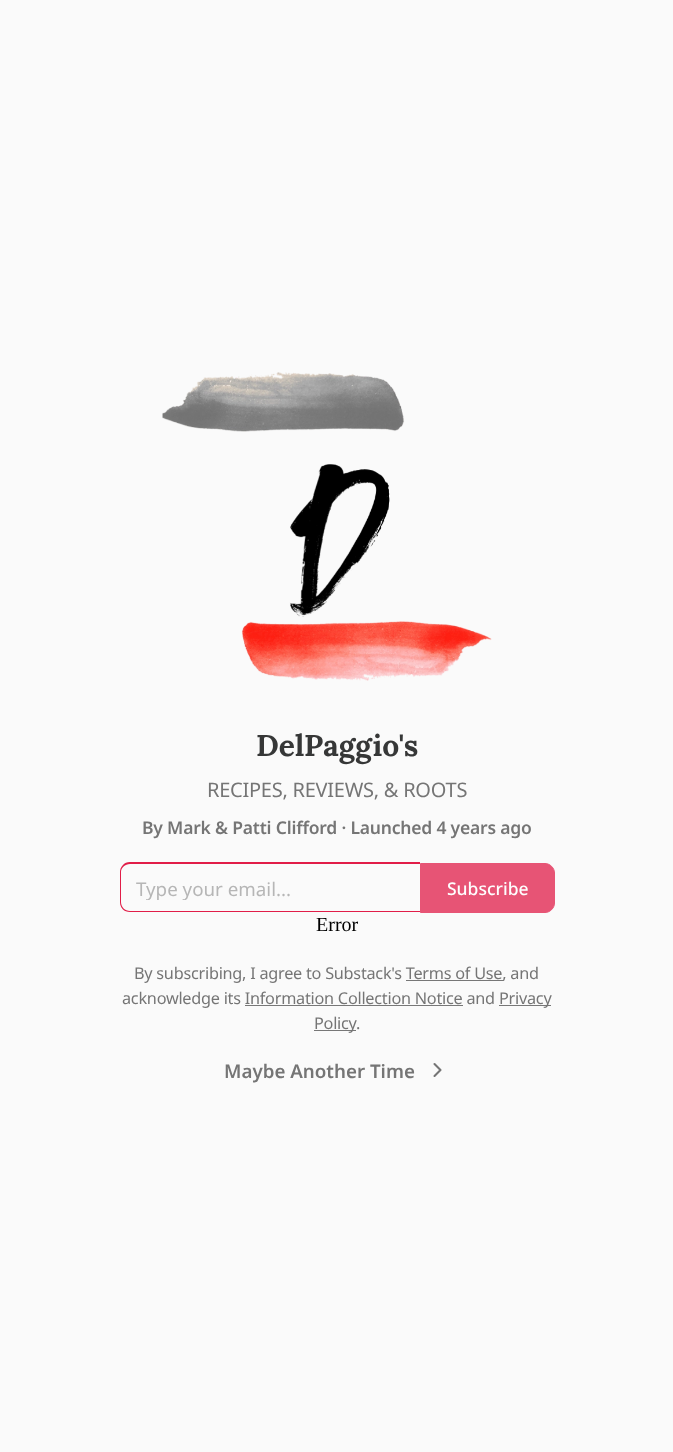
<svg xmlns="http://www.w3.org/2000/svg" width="673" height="1452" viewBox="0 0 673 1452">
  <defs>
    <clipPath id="clip1"><path d="M136 875h269v25H136z"/></clipPath>
  </defs>
  <rect width="100%" height="100%" fill="#fafafa"/>
  <image x="162" y="372" width="330" height="309" href="img/1.png"/>
  <path d="M130 862H420V912H130C124 912 120 908 120 902V872C120 867 124 862 130 862ZM130 864H420V911H130C125 911 121 907 121 902V872C121 868 125 864 130 864Z" fill="#e11d48" fill-rule="evenodd"/>
  <path d="M420.5 863.5H545C550 863.5 554.5 868 554.5 873V903C554.5 908 550 912.5 545 912.5H420.5Z" fill="#e75475" stroke="#e75475"/>
  <path d="M499 1005h52v1H499z" fill="#777"/>
  <path d="M314 1030h42v1H314z" fill="#777"/>
  <path d="M434.5 1076L440.5 1070L434.5 1064" fill="none" stroke="#757575" stroke-width="2.1" stroke-linecap="round" stroke-linejoin="round"/>
  <text x="256" y="756" font-family="Lora" font-size="30" font-weight="bold" fill="#363737">DelPaggio's</text>
  <text x="207" y="797" font-family="Noto Sans" font-size="20" letter-spacing="-0.25" fill="#757575">RECIPES, REVIEWS, &amp; ROOTS</text>
  <text x="142" y="834" font-family="Noto Sans" font-size="17.5" font-weight="600" letter-spacing="-0.2" fill="#757575">By Mark &amp; Patti Clifford · Launched 4 years ago</text>
  <g clip-path="url(#clip1)">
    <text x="136" y="896" font-family="Noto Sans" font-size="18.75" fill="#b6b6b6">Type your email...</text>
  </g>
  <text x="447" y="895" font-family="Noto Sans" font-size="17.5" font-weight="500" fill="#fefefe">Subscribe</text>
  <text x="316" y="931" font-family="Liberation Serif" font-size="20" fill="#000">Error</text>
  <text x="134" y="979" font-family="Noto Sans" font-size="16.25" letter-spacing="-0.25" fill="#757575">By subscribing, I agree to Substack's Terms of Use, and</text>
  <path d="M406 980h97v1H406z" fill="#777"/>
  <g font-family="Noto Sans" font-size="16.25" letter-spacing="-0.25" fill="#757575">
    <text x="122" y="1004">acknowledge its Information Collection Notice and</text>
    <text x="499" y="1004">Privacy</text>
  </g>
  <path d="M245 1005h218v1H245z" fill="#777"/>
  <g font-family="Noto Sans" font-size="16.25" letter-spacing="-0.25" fill="#757575">
    <text x="314" y="1029">Policy</text>
    <text x="356" y="1029">.</text>
  </g>
  <text x="224" y="1078" font-family="Noto Sans" font-size="18.75" font-weight="600" fill="#757575">Maybe Another Time</text>
</svg>
